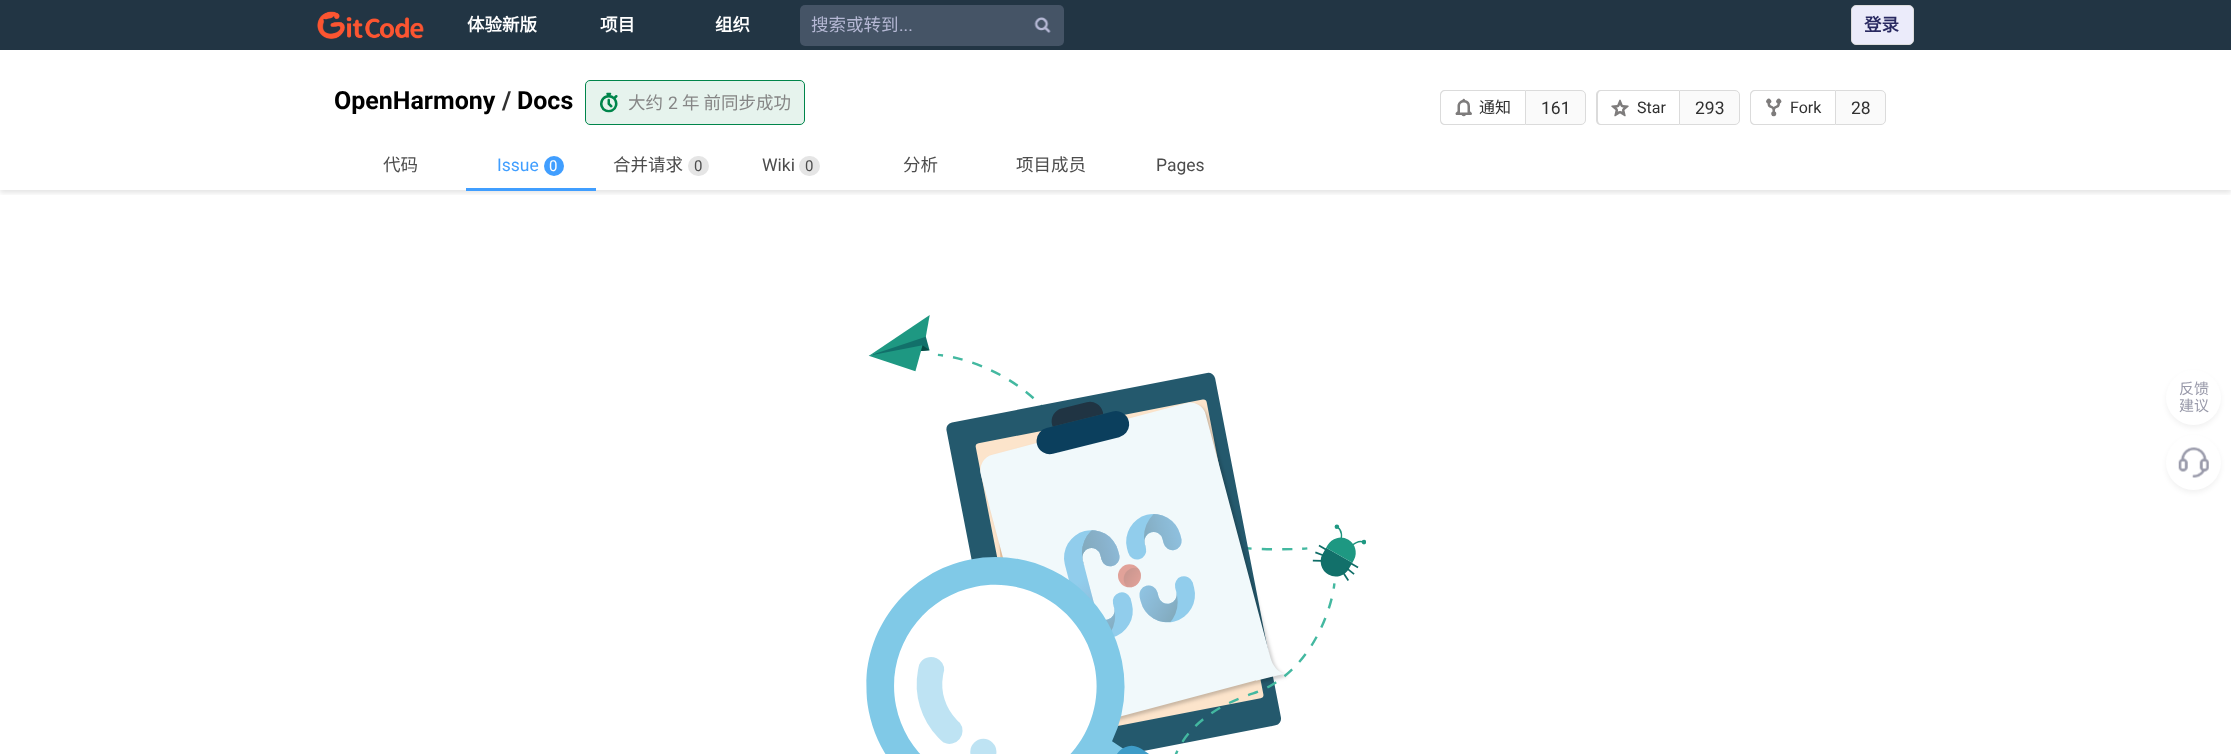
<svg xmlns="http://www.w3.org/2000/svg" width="2231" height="754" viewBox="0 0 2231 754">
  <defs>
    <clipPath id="clip1"><path d="M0 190h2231v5H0z"/></clipPath>
  </defs>
  <rect width="100%" height="100%" fill="#fff"/>
  <path d="M0 0h2231v50H0z" fill="#223544"/>
  <image x="317" y="11" width="107" height="29" href="img/1.png"/>
  <rect x="800" y="5" width="264" height="41" rx="5" fill="#455466"/>
  <image x="1034" y="17" width="17" height="16" href="img/2.png"/>
  <rect x="1851.5" y="5.5" width="62" height="39" rx="4.5" fill="#ebebfa" stroke="#dbdbdb"/>
  <rect x="585.5" y="80.5" width="219" height="44" rx="4.5" fill="#e6f3ed" stroke="#00854b"/>
  <image x="600" y="92" width="18" height="21" href="img/3.png"/>
  <path d="M1445 90H1525V125H1445C1442 125 1440 123 1440 120V95C1440 92 1442 90 1445 90ZM1445 91H1525V124H1445C1443 124 1441 122 1441 120V95C1441 93 1443 91 1445 91Z" fill="#dbdbdb" fill-rule="evenodd"/>
  <image x="1455" y="98" width="17" height="19" href="img/4.png"/>
  <path d="M1525.5 90.5H1581C1583.5 90.5 1585.5 92.5 1585.5 95V120C1585.5 122.5 1583.5 124.5 1581 124.5H1525.5Z" fill="#fafafa" stroke="#dbdbdb"/>
  <path d="M1601 90H1679V125H1601C1598 125 1596 123 1596 120V95C1596 92 1598 90 1601 90ZM1601 91H1679V124H1601C1599 124 1598 122 1598 120V95C1598 93 1599 91 1601 91Z" fill="#dbdbdb" fill-rule="evenodd"/>
  <image x="1611" y="99" width="18" height="18" href="img/5.png"/>
  <path d="M1679.5 90.5H1735C1737.5 90.5 1739.5 92.5 1739.5 95V120C1739.5 122.5 1737.5 124.5 1735 124.5H1679.5Z" fill="#fafafa" stroke="#dbdbdb"/>
  <path d="M1755 90H1835V125H1755C1752 125 1750 123 1750 120V95C1750 92 1752 90 1755 90ZM1755 91H1835V124H1755C1753 124 1751 122 1751 120V95C1751 93 1753 91 1755 91Z" fill="#dbdbdb" fill-rule="evenodd"/>
  <image x="1766" y="98" width="16" height="19" href="img/6.png"/>
  <path d="M1835.5 90.5H1881C1883.5 90.5 1885.5 92.5 1885.5 95V120C1885.5 122.5 1883.5 124.5 1881 124.5H1835.5Z" fill="#fafafa" stroke="#dbdbdb"/>
  <g clip-path="url(#clip1)">
    <path d="M0 143h2231v50H0z" fill="#0000001a" filter="blur(2.5px)"/>
  </g>
  <path d="M466 188h130v3H466z" fill="#409eff"/>
  <circle cx="554" cy="166" r="10" fill="#409eff"/>
  <rect x="688" y="156" width="21" height="20" rx="10" fill="#e5e5e5"/>
  <rect x="799" y="156" width="21" height="20" rx="10" fill="#e5e5e5"/>
  <image x="866" y="315" width="500" height="439" href="img/7.png"/>
  <rect x="2166" y="373" width="55" height="55" rx="27.5" fill="#0000000d" filter="blur(2.5px)"/>
  <circle cx="2193.5" cy="397.5" r="27.5" fill="#fff"/>
  <rect x="2166" y="438" width="55" height="55" rx="27.5" fill="#0000000d" filter="blur(2.5px)"/>
  <circle cx="2193.5" cy="462.5" r="27.5" fill="#fff"/>
  <image x="2178" y="447" width="31" height="31" href="img/8.png"/>
  <g font-family="Noto Sans CJK SC" font-size="17.5" font-weight="bold" fill="#fff">
    <text x="467" y="31">体验新版</text>
    <text x="600" y="31">项目</text>
    <text x="715" y="31">组织</text>
  </g>
  <text x="811" y="31" font-family="Noto Sans CJK SC" font-size="17.5" fill="#b5b8d4">搜索或转到</text>
  <text x="899" y="31" font-family="Roboto" font-size="17.5" fill="#b5b8d4">...</text>
  <text x="1864" y="31" font-family="Noto Sans CJK SC" font-size="17.5" font-weight="bold" fill="#292961">登录</text>
  <text x="334" y="109" font-family="Roboto" font-size="25" font-weight="bold" fill="#000">OpenHarmony</text>
  <text x="502" y="109" font-family="Roboto" font-size="25" font-weight="bold" fill="#303030">/</text>
  <text x="517" y="109" font-family="Roboto" font-size="25" font-weight="bold" fill="#000">Docs</text>
  <text x="628" y="109" font-family="Noto Sans CJK SC" font-size="17.5" fill="#868686">大约</text>
  <text x="668" y="109" font-family="Roboto" font-size="17.5" fill="#868686">2</text>
  <text x="682" y="109" font-family="Noto Sans CJK SC" font-size="17.5" fill="#868686">年 前同步成功</text>
  <text x="1479" y="113" font-family="Noto Sans CJK SC" font-size="16" fill="#303030">通知</text>
  <text x="1541" y="114" font-family="Roboto" font-size="17.5" fill="#303030">161</text>
  <text x="1637" y="113" font-family="Roboto" font-size="16" fill="#303030">Star</text>
  <text x="1695" y="114" font-family="Roboto" font-size="17.5" fill="#303030">293</text>
  <text x="1790" y="113" font-family="Roboto" font-size="16" fill="#303030">Fork</text>
  <text x="1851" y="114" font-family="Roboto" font-size="17.5" fill="#303030">28</text>
  <text x="383" y="171" font-family="Noto Sans CJK SC" font-size="17.5" fill="#4c4c4c">代码</text>
  <text x="497" y="171" font-family="Roboto" font-size="17.5" fill="#409eff">Issue</text>
  <text x="549" y="171" font-family="Roboto" font-size="15" fill="#fff">0</text>
  <text x="613" y="171" font-family="Noto Sans CJK SC" font-size="17.5" fill="#4c4c4c">合并请求</text>
  <text x="694" y="171" font-family="Roboto" font-size="15" fill="#4c4c4c">0</text>
  <text x="762" y="171" font-family="Roboto" font-size="17.5" fill="#4c4c4c">Wiki</text>
  <text x="805" y="171" font-family="Roboto" font-size="15" fill="#4c4c4c">0</text>
  <g font-family="Noto Sans CJK SC" font-size="17.5" fill="#4c4c4c">
    <text x="903" y="171">分析</text>
    <text x="1016" y="171">项目成员</text>
  </g>
  <text x="1156" y="171" font-family="Roboto" font-size="17.5" fill="#4c4c4c">Pages</text>
  <g font-family="Noto Sans CJK SC" font-size="15" fill="#999aaa">
    <text x="2179" y="394">反馈</text>
    <text x="2179" y="411">建议</text>
  </g>
</svg>
